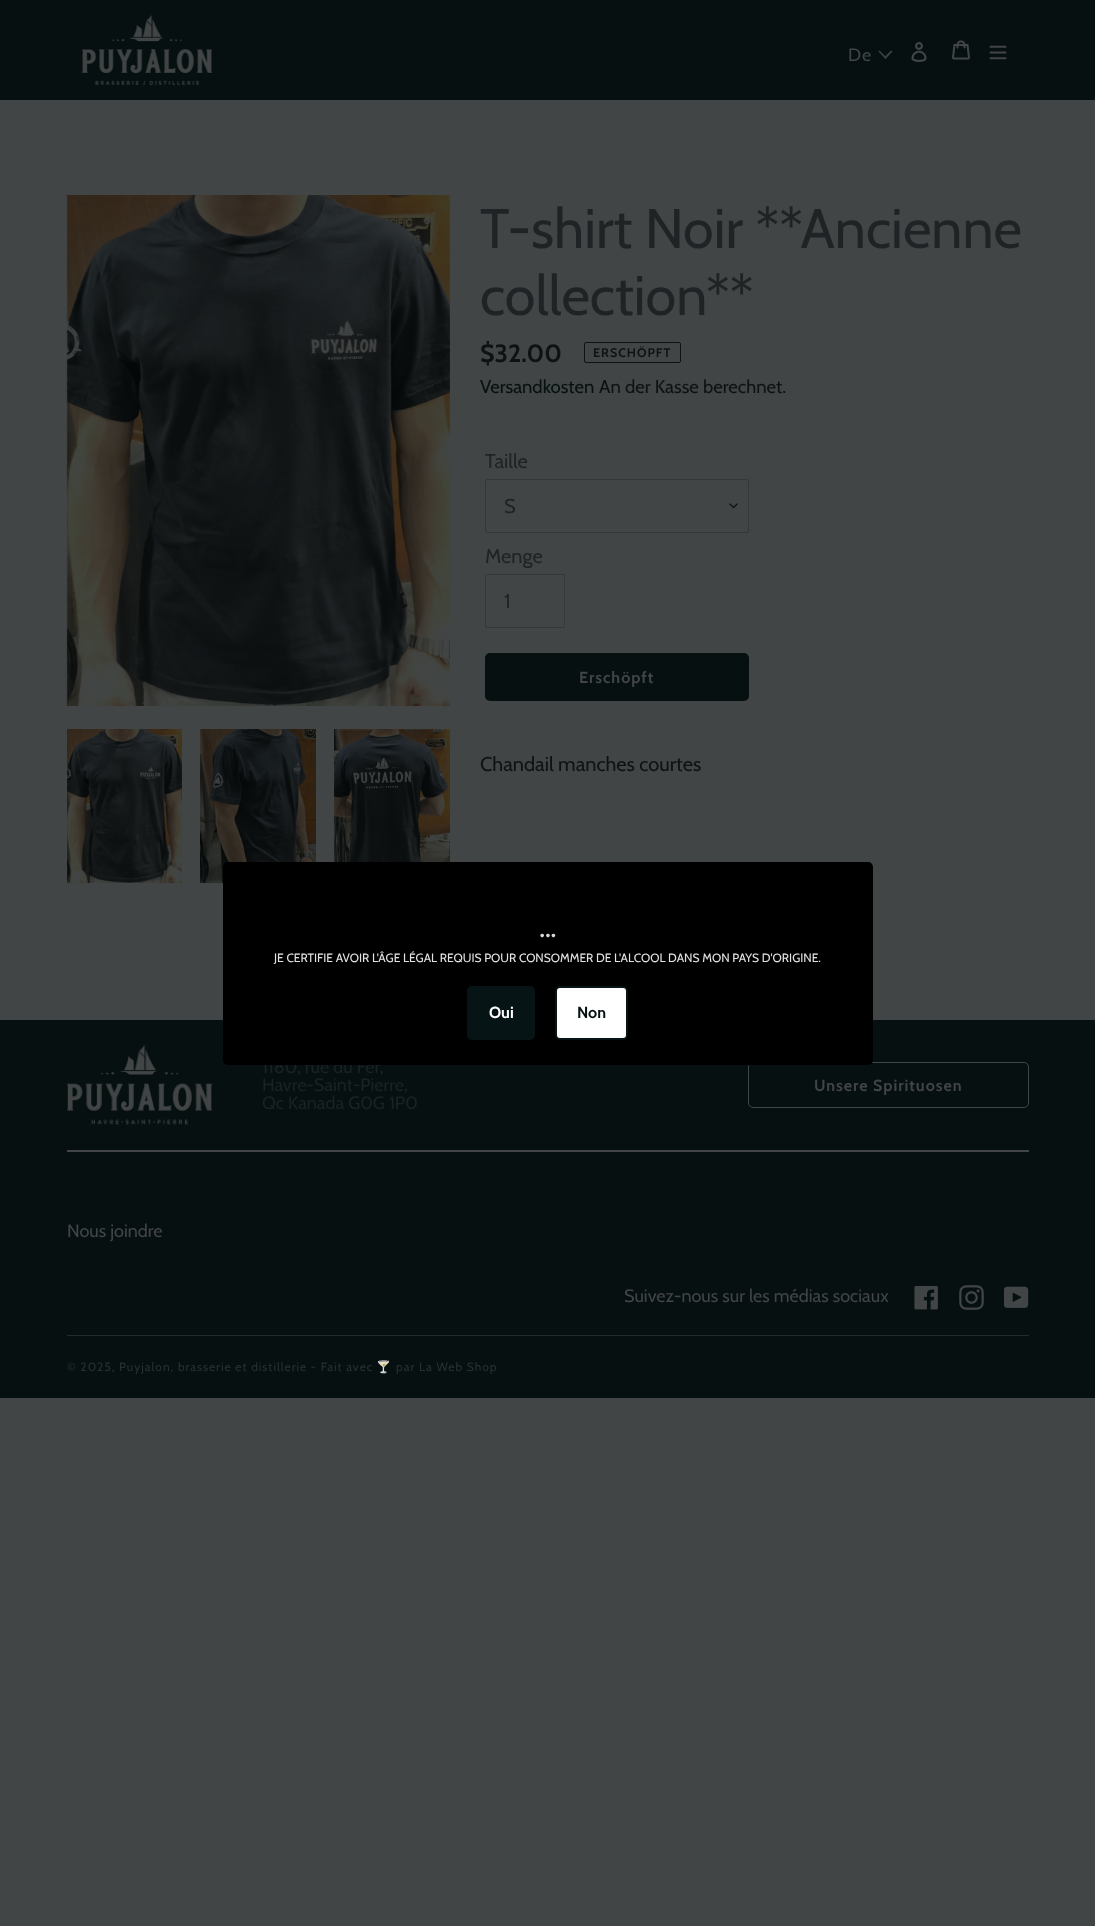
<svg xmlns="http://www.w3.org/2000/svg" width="1095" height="1926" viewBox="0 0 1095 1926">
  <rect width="100%" height="100%" fill="#424545"/>
  <path d="M0 0h1095v100H0z" fill="#061011"/>
  <image x="81" y="15" width="131" height="70" href="img/1.png"/>
  <path d="M891 50.5L892.5 51.5L885.5 59L884 57.5Z" fill="#3c4040"/>
  <path d="M879.5 50.5L886.5 57.5L885.5 59L878.5 51.5Z" fill="#3c4040"/>
  <image x="911" y="42" width="16" height="20" href="img/2.png"/>
  <image x="952" y="40" width="18" height="20" href="img/3.png"/>
  <image x="989" y="45" width="18" height="15" href="img/4.png"/>
  <image x="66" y="195" width="384" height="511" href="img/5.png"/>
  <image x="67" y="729" width="115" height="154" href="img/6.png"/>
  <image x="200" y="729" width="116" height="154" href="img/7.png"/>
  <image x="334" y="729" width="116" height="133" href="img/8.png"/>
  <rect x="584.5" y="342.5" width="96" height="20" rx="1.5" fill="none" stroke="#0f1212"/>
  <image x="729" y="503" width="9" height="6" href="img/9.png"/>
  <rect x="485.5" y="479.5" width="263" height="53" rx="1.5" fill="none" stroke="#353839"/>
  <rect x="485.5" y="574.5" width="79" height="53" rx="1.5" fill="none" stroke="#353839"/>
  <rect x="486" y="654" width="262" height="46" rx="4" fill="#061011" stroke="#061011" stroke-width="2"/>
  <path d="M0 1020h1095v378H0z" fill="#061011"/>
  <image x="67" y="1045" width="145" height="80" href="img/10.png"/>
  <rect x="748.5" y="1062.5" width="280" height="45" rx="4.5" fill="none" stroke="#424545"/>
  <path d="M67 1150h962v2H67z" fill="#424545"/>
  <image x="914" y="1286" width="24" height="24" href="img/11.png"/>
  <image x="959" y="1285" width="25" height="25" href="img/12.png"/>
  <image x="1004" y="1286" width="25" height="22" href="img/13.png"/>
  <path d="M67 1335h962v1H67z" fill="#242b2b"/>
  <text x="848" y="61" font-family="Cabin" font-size="18" letter-spacing="1" fill="#424545">De</text>
  <g font-family="Cabin" font-size="55.6" fill="#202325">
    <text x="480" y="248">T-shirt Noir **Ancienne</text>
    <text x="480" y="315">collection**</text>
  </g>
  <text x="480" y="362" font-family="Cabin" font-size="25" font-weight="bold" fill="#0f1212">$32.00</text>
  <text x="593" y="357" font-family="Cabin" font-size="12.5" font-weight="bold" letter-spacing="1" fill="#0f1212">ERSCHÖPFT</text>
  <text x="480" y="393" font-family="Cabin" font-size="18.5" fill="#061011">Versandkosten</text>
  <text x="599" y="393" font-family="Cabin" font-size="18.5" fill="#0f1212">An der Kasse berechnet.</text>
  <g font-family="Cabin" font-size="20" fill="#202325">
    <text x="485" y="468">Taille</text>
    <text x="504" y="513">S</text>
    <text x="485" y="563">Menge</text>
    <text x="504" y="608">1</text>
  </g>
  <text x="579" y="683" font-family="Cabin" font-size="16" font-weight="bold" letter-spacing="1" fill="#424545">Erschöpft</text>
  <text x="480" y="771" font-family="Cabin" font-size="20" fill="#0f1212">Chandail manches courtes</text>
  <g font-family="Cabin" font-size="18" fill="#1a2223">
    <text x="262" y="1073">1180, rue du Fer,</text>
    <text x="262" y="1091">Havre-Saint-Pierre,</text>
    <text x="262" y="1109">Qc Kanada G0G 1P0</text>
  </g>
  <text x="814" y="1091" font-family="Cabin" font-size="16" font-weight="bold" letter-spacing="1" fill="#424545">Unsere Spirituosen</text>
  <g font-family="Cabin" font-size="18" fill="#424545">
    <text x="67" y="1237">Nous joindre</text>
    <text x="624" y="1302">Suivez-nous sur les médias sociaux</text>
  </g>
  <text x="67" y="1371" font-family="Cabin" font-size="12" letter-spacing="1" fill="#2a3030">© 2025, Puyjalon, brasserie et distillerie - Fait avec</text>
  <text x="376" y="1371" font-family="Noto Color Emoji" font-size="12" letter-spacing="1" fill="#2a3030">🍸</text>
  <text x="396" y="1371" font-family="Cabin" font-size="12" letter-spacing="1" fill="#2a3030">par La Web Shop</text>
  <rect x="223" y="862" width="650" height="203" rx="5" fill="#000"/>
  <text x="539" y="937" font-family="Besley" font-size="24" font-weight="bold" fill="#d9d9d9">...</text>
  <text x="274" y="962" font-family="Cabin" font-size="12" fill="#e2e2e2">JE CERTIFIE AVOIR L'ÂGE LÉGAL REQUIS POUR CONSOMMER DE L'ALCOOL DANS MON PAYS D'ORIGINE.</text>
  <rect x="468" y="987" width="66" height="52" rx="4" fill="#071415" stroke="#071415" stroke-width="2"/>
  <text x="489" y="1018" font-family="Cabin" font-size="16" font-weight="bold" fill="#fff">Oui</text>
  <rect x="556" y="987" width="71" height="52" rx="4" fill="#fff" stroke="#071415" stroke-width="2"/>
  <text x="577" y="1018" font-family="Cabin" font-size="16" font-weight="bold" fill="#061011">Non</text>
</svg>
